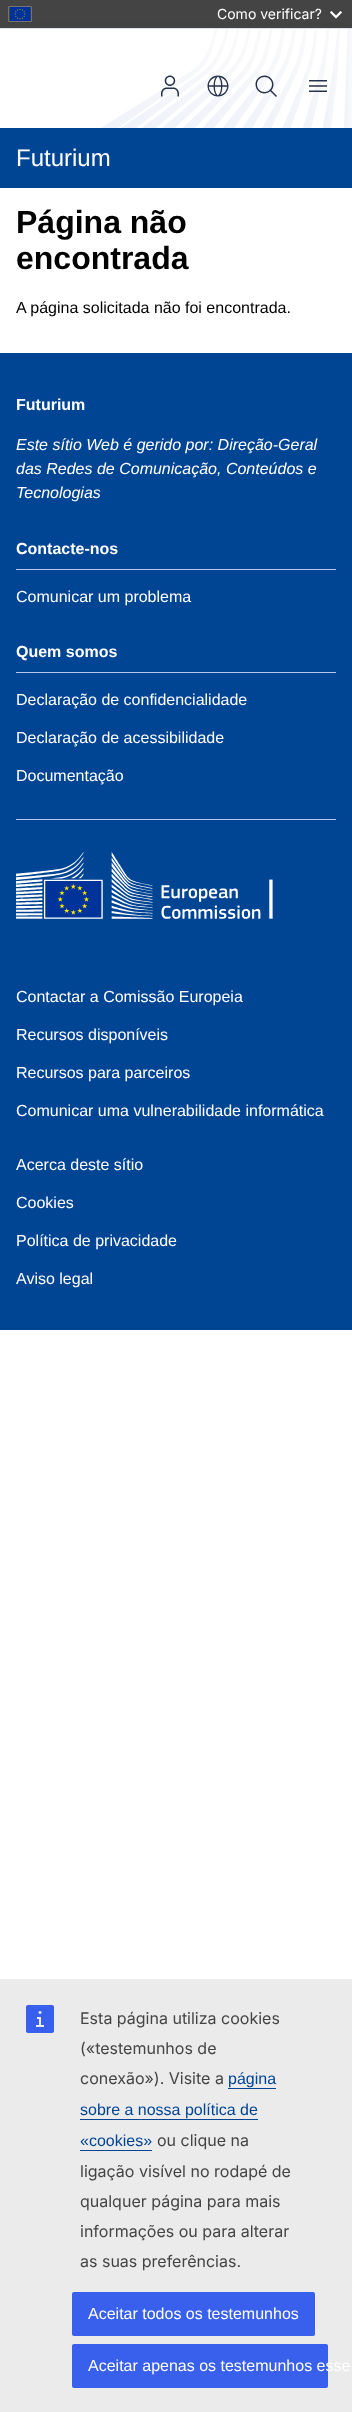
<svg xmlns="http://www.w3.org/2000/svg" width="352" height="2412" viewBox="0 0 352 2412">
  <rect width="100%" height="100%" fill="#fff"/>
  <path d="M0 0h352v28H0z" fill="#444"/>
  <path d="M8.5 6.5h23v15H8.5z" fill="none" stroke="#737373"/>
  <image x="10" y="7" width="21" height="14" href="img/1.png"/>
  <image x="330" y="11" width="12" height="8" href="img/2.png"/>
  <path d="M0 28h352v100H0z" fill="#26324b0f" filter="blur(3px)"/>
  <path d="M0 29h352v99H0z" fill="#fff"/>
  <image x="101" y="29" width="251" height="99" href="img/3.png"/>
  <path d="M0 28h352v1H0z" fill="#e0e5f5"/>
  <image x="161" y="75" width="18" height="22" href="img/4.png"/>
  <image x="207" y="75" width="22" height="22" href="img/5.png"/>
  <image x="255" y="75" width="22" height="22" href="img/6.png"/>
  <image x="309" y="80" width="18" height="12" href="img/7.png"/>
  <path d="M0 128h352v60H0z" fill="#004494"/>
  <path d="M0 353h352v977H0z" fill="#004494"/>
  <path d="M16 819h320v1H16z" fill="#b9c5e9"/>
  <path d="M16 569h320v1H16z" fill="#b9c5e9"/>
  <path d="M16 672h320v1H16z" fill="#b9c5e9"/>
  <image x="16" y="852" width="257" height="67" href="img/8.png"/>
  <path d="M0 1979h352v433H0z" fill="#ebebeb"/>
  <image x="26" y="2005" width="28" height="28" href="img/9.png"/>
  <path d="M228 2088h48v1H228z" fill="#004494"/>
  <path d="M80 2119h178v1H80z" fill="#004494"/>
  <path d="M80 2150h72v1H80z" fill="#004494"/>
  <rect x="72" y="2292" width="243" height="44" rx="2" fill="#3860ed"/>
  <rect x="72" y="2344" width="256" height="44" rx="2" fill="#3860ed"/>
  <text x="217" y="19" font-family="Inter" font-size="14" fill="#fff">Como verificar?</text>
  <text x="16" y="166" font-family="Liberation Sans" font-size="24" fill="#fff">Futurium</text>
  <g font-family="Liberation Sans" font-size="32" font-weight="bold" fill="#000">
    <text x="16" y="233">Página não</text>
    <text x="16" y="269">encontrada</text>
  </g>
  <text x="16" y="313" font-family="Liberation Sans" font-size="16" fill="#000">A página solicitada não foi encontrada.</text>
  <text x="16" y="410" font-family="Liberation Sans" font-size="16" font-weight="bold" fill="#fff">Futurium</text>
  <g font-family="Liberation Sans" font-size="16" font-style="italic" fill="#fff">
    <text x="16" y="450">Este sítio Web é gerido por: Direção-Geral</text>
    <text x="16" y="474">das Redes de Comunicação, Conteúdos e</text>
    <text x="16" y="498">Tecnologias</text>
  </g>
  <text x="16" y="554" font-family="Liberation Sans" font-size="16" font-weight="bold" fill="#fff">Contacte-nos</text>
  <text x="16" y="602" font-family="Liberation Sans" font-size="16" fill="#fff">Comunicar um problema</text>
  <text x="16" y="657" font-family="Liberation Sans" font-size="16" font-weight="bold" fill="#fff">Quem somos</text>
  <g font-family="Liberation Sans" font-size="16" fill="#fff">
    <text x="16" y="705">Declaração de confidencialidade</text>
    <text x="16" y="743">Declaração de acessibilidade</text>
    <text x="16" y="781">Documentação</text>
    <text x="16" y="1002">Contactar a Comissão Europeia</text>
    <text x="16" y="1040">Recursos disponíveis</text>
    <text x="16" y="1078">Recursos para parceiros</text>
    <text x="16" y="1116">Comunicar uma vulnerabilidade informática</text>
    <text x="16" y="1170">Acerca deste sítio</text>
    <text x="16" y="1208">Cookies</text>
    <text x="16" y="1246">Política de privacidade</text>
    <text x="16" y="1284">Aviso legal</text>
  </g>
  <g font-family="Inter" font-size="16" fill="#444">
    <text x="80" y="2024">Esta página utiliza cookies</text>
    <text x="80" y="2054">(«testemunhos de</text>
    <text x="80" y="2084">conexão»). Visite a</text>
  </g>
  <g font-family="Liberation Sans" font-size="16" fill="#004494">
    <text x="228" y="2084">página</text>
    <text x="80" y="2115">sobre a nossa política de</text>
    <text x="80" y="2146">«cookies»</text>
  </g>
  <g font-family="Inter" font-size="16" fill="#444">
    <text x="157" y="2146">ou clique na</text>
    <text x="80" y="2177">ligação visível no rodapé de</text>
    <text x="80" y="2207">qualquer página para mais</text>
    <text x="80" y="2237">informações ou para alterar</text>
    <text x="80" y="2267">as suas preferências.</text>
  </g>
  <g font-family="Liberation Sans" font-size="16" fill="#fff">
    <text x="88" y="2319">Aceitar todos os testemunhos</text>
    <text x="88" y="2371">Aceitar apenas os testemunhos esse</text>
  </g>
</svg>
